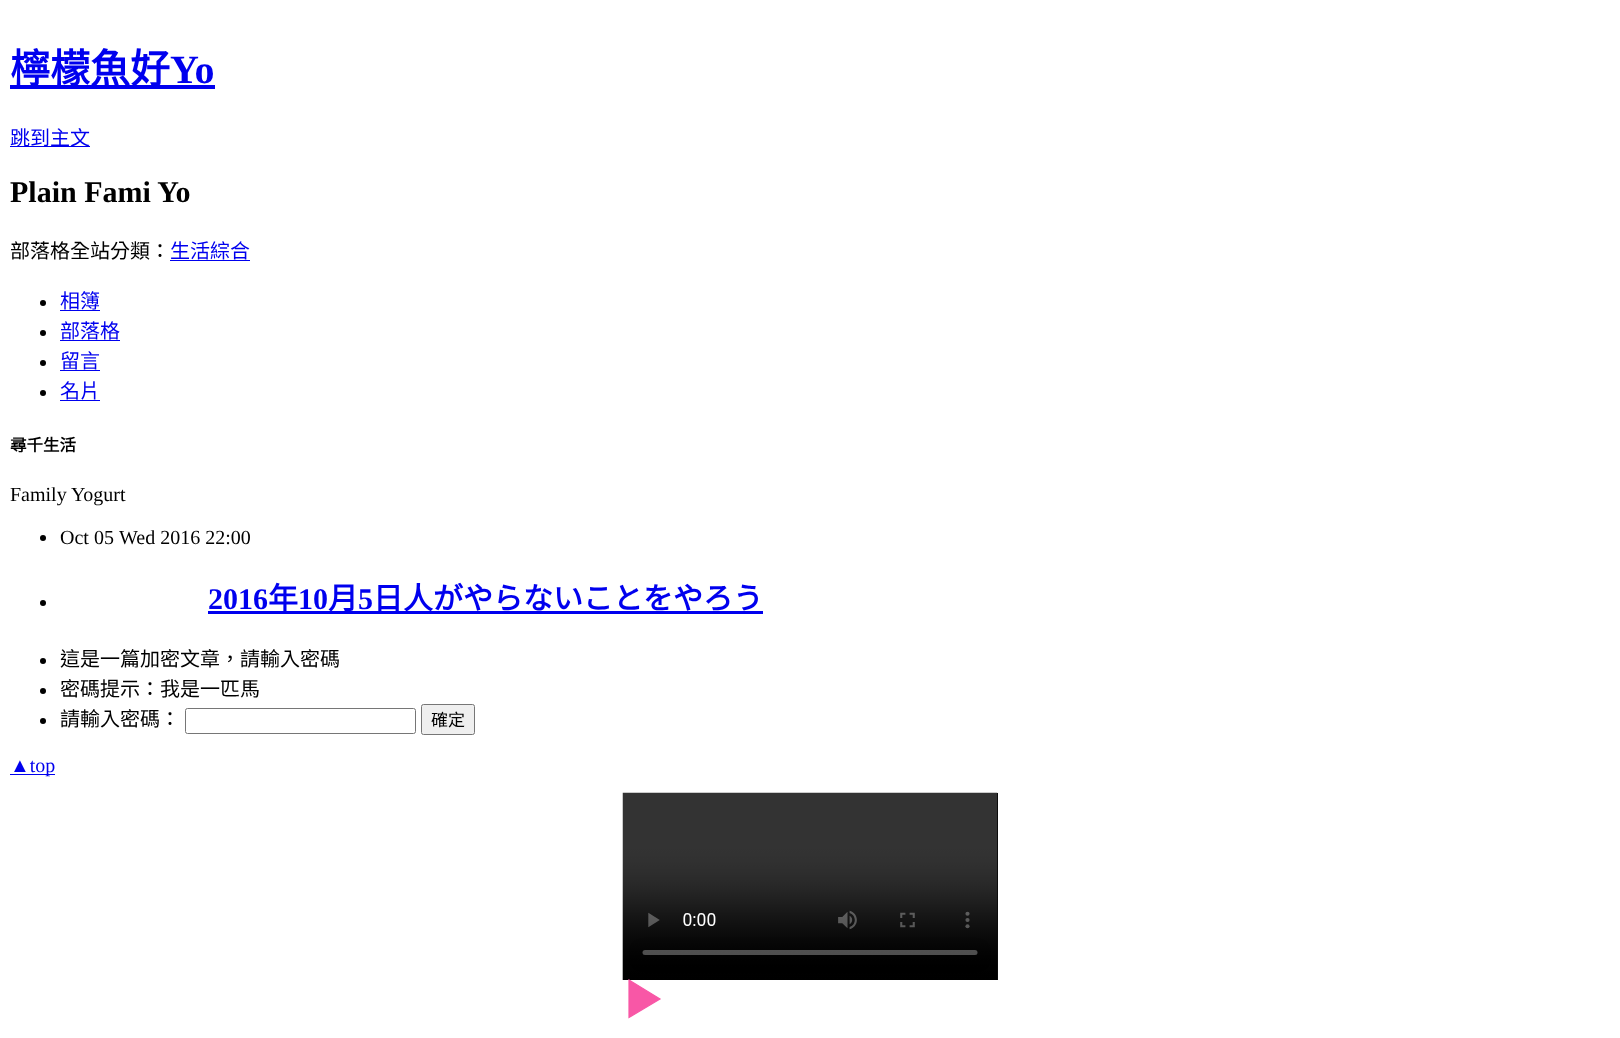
<svg xmlns="http://www.w3.org/2000/svg" width="1620" height="1038" viewBox="0 0 1620 1038">
  <rect width="100%" height="100%" fill="#fff"/>
  <path d="M10 85h205v4H10z" fill="#00e"/>
  <path d="M10 146h80v1H10z" fill="#00e"/>
  <path d="M170 260h80v1H170z" fill="#00e"/>
  <circle cx="43" cy="303" r="3" fill="#000"/>
  <path d="M60 310h40v1H60z" fill="#00e"/>
  <circle cx="43" cy="333" r="3" fill="#000"/>
  <path d="M60 340h60v1H60z" fill="#00e"/>
  <circle cx="43" cy="363" r="3" fill="#000"/>
  <path d="M60 370h40v1H60z" fill="#00e"/>
  <circle cx="43" cy="393" r="3" fill="#000"/>
  <path d="M60 400h40v1H60z" fill="#00e"/>
  <circle cx="43" cy="538" r="3" fill="#000"/>
  <circle cx="43" cy="603" r="3" fill="#000"/>
  <path d="M208 611h555v3H208z" fill="#00e"/>
  <circle cx="43" cy="661" r="3" fill="#000"/>
  <circle cx="43" cy="691" r="3" fill="#000"/>
  <circle cx="43" cy="721" r="3" fill="#000"/>
  <rect x="185.5" y="708.5" width="230" height="25" rx="2" fill="none" stroke="#767676"/>
  <rect x="421.5" y="704.5" width="53" height="30" rx="2" fill="#efefef" stroke="#767676"/>
  <path d="M10 774h45v1H10z" fill="#00e"/>
  <path d="M997 793h1v187H997z" fill="#000"/>
  <image x="622" y="792" width="376" height="188" href="img/1.png"/>
  <path d="M629 980L660 999L629 1017.5Z" fill="#f857a6" stroke="#f857a6" stroke-width="1.2"/>
  <text x="10" y="83" font-family="Noto Sans CJK TC" font-size="40" font-weight="bold" fill="#00e">檸檬魚好</text>
  <text x="170" y="83" font-family="Liberation Serif" font-size="40" font-weight="bold" fill="#00e">Yo</text>
  <text x="10" y="145" font-family="Noto Sans CJK TC" font-size="20" fill="#00e">跳到主文</text>
  <text x="10" y="202" font-family="Liberation Serif" font-size="30" font-weight="bold" fill="#000">Plain Fami Yo</text>
  <text x="10" y="258" font-family="Noto Sans CJK TC" font-size="20" fill="#000">部落格全站分類：</text>
  <g font-family="Noto Sans CJK TC" font-size="20" fill="#00e">
    <text x="170" y="258">生活綜合</text>
    <text x="60" y="308">相簿</text>
    <text x="60" y="338">部落格</text>
    <text x="60" y="368">留言</text>
    <text x="60" y="398">名片</text>
  </g>
  <text x="10" y="451" font-family="Noto Sans CJK TC" font-size="16.5" font-weight="bold" fill="#000">尋千生活</text>
  <g font-family="Liberation Serif" font-size="20" fill="#000">
    <text x="10" y="501">Family Yogurt</text>
    <text x="60" y="544">Oct 05</text>
    <text x="119" y="544">Wed 2016 22:00</text>
  </g>
  <text x="208" y="609" font-family="Liberation Serif" font-size="30" font-weight="bold" fill="#00e">2016</text>
  <text x="268" y="609" font-family="Noto Sans CJK TC" font-size="30" font-weight="bold" fill="#00e">年</text>
  <text x="298" y="609" font-family="Liberation Serif" font-size="30" font-weight="bold" fill="#00e">10</text>
  <text x="328" y="609" font-family="Noto Sans CJK TC" font-size="30" font-weight="bold" fill="#00e">月</text>
  <text x="358" y="609" font-family="Liberation Serif" font-size="30" font-weight="bold" fill="#00e">5</text>
  <text x="373" y="609" font-family="Noto Sans CJK TC" font-size="30" font-weight="bold" fill="#00e">日人がやらないことをやろう</text>
  <g font-family="Noto Sans CJK TC" font-size="20" fill="#000">
    <text x="60" y="666">這是一篇加密文章，請輸入密碼</text>
    <text x="60" y="696">密碼提示：我是一匹馬</text>
    <text x="60" y="726">請輸入密碼：</text>
  </g>
  <text x="431" y="726" font-family="Noto Sans CJK TC" font-size="17" fill="#000">確定</text>
  <text x="10" y="772" font-family="Liberation Serif" font-size="20" fill="#00e">▲top</text>
</svg>
